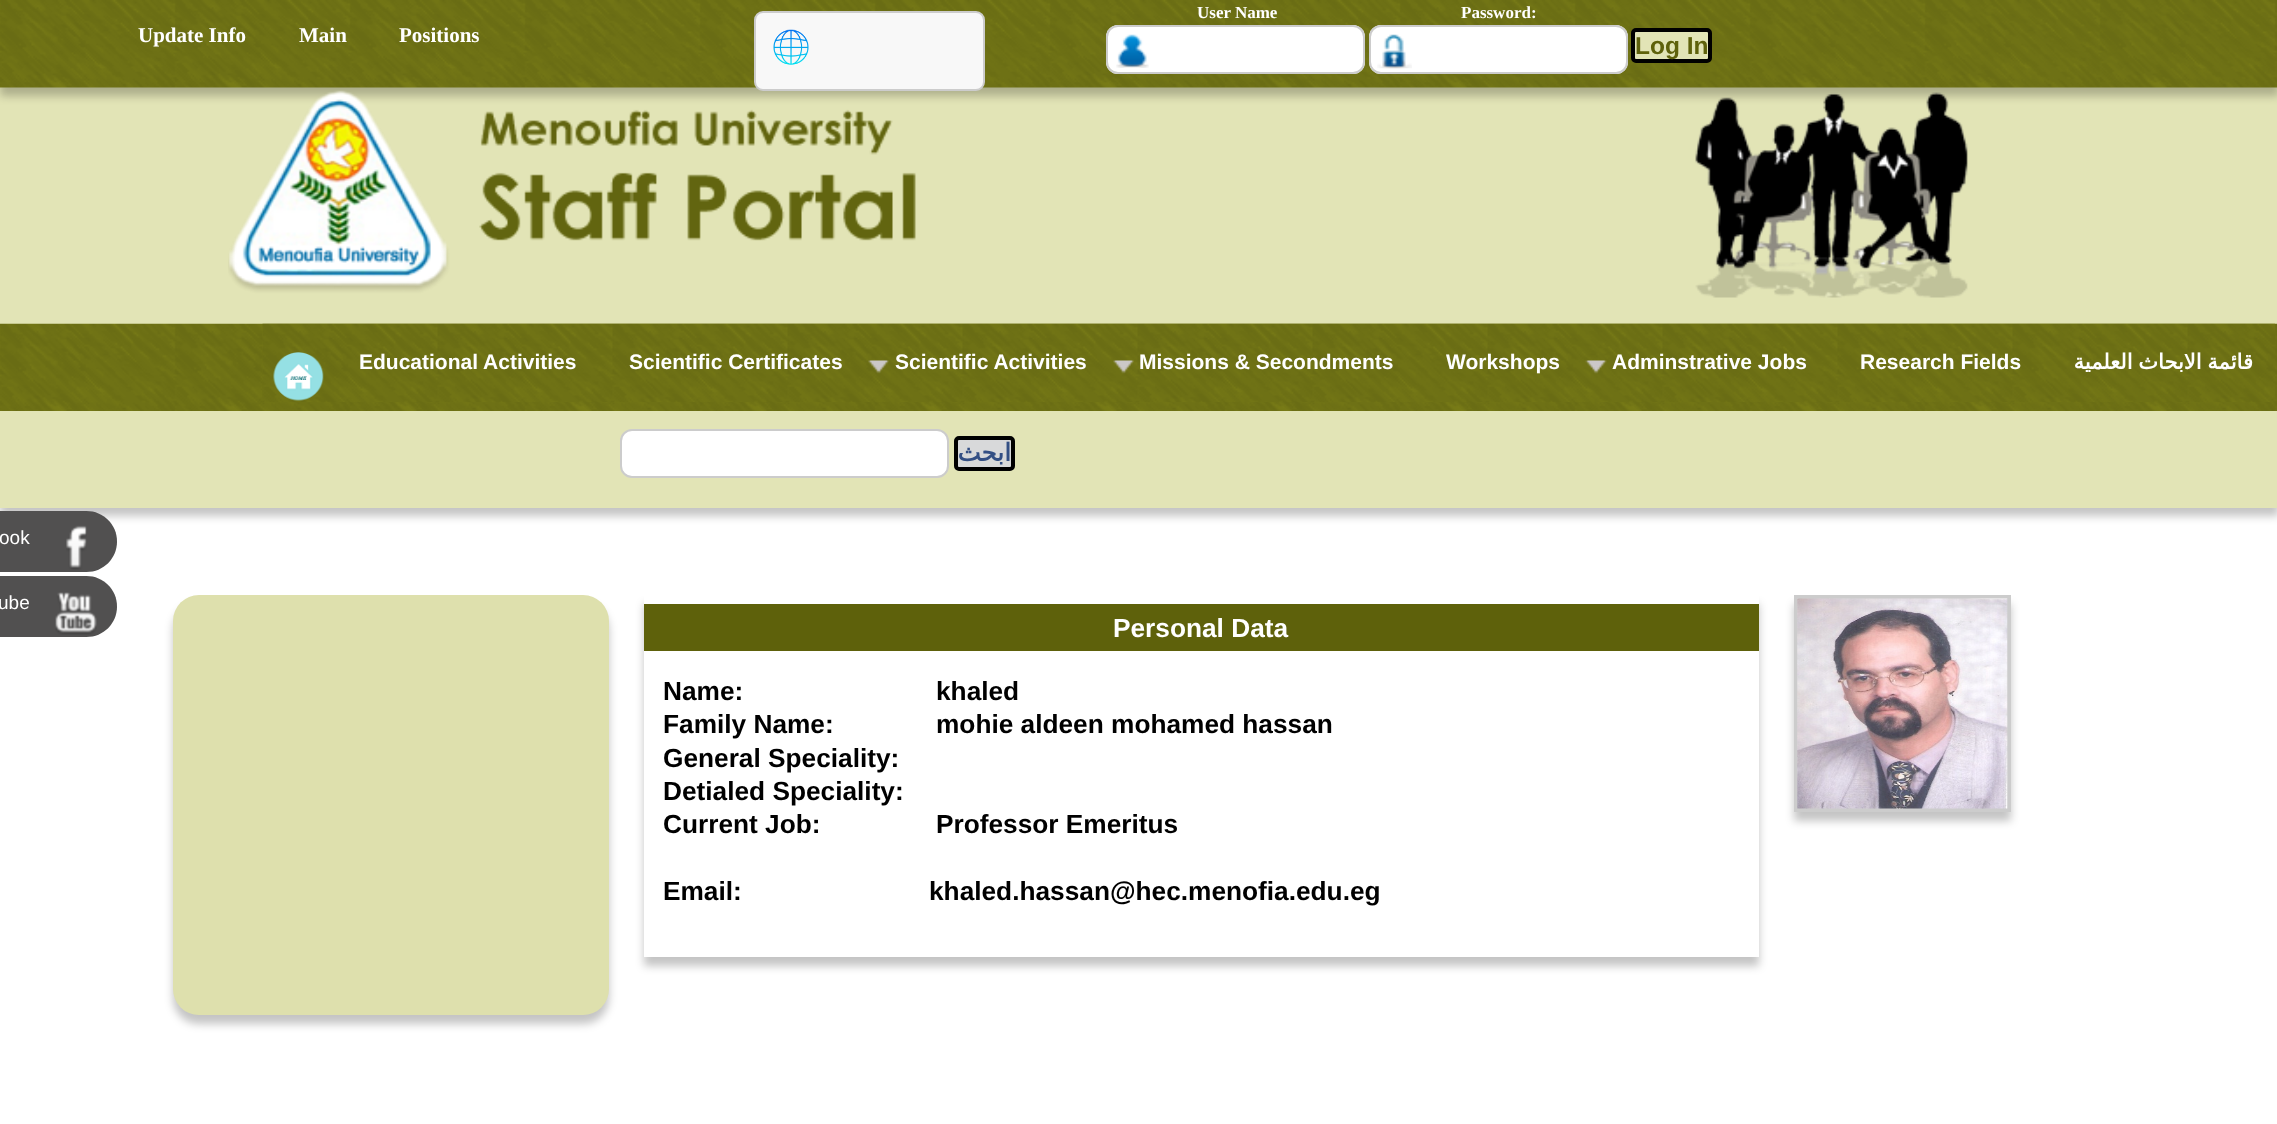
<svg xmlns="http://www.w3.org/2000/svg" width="2277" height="1124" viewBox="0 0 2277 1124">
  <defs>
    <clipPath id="clip1"><path d="M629 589H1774V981H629ZM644 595H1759V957H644Z" clip-rule="evenodd"/></clipPath>
  </defs>
  <rect width="100%" height="100%" fill="#fff"/>
  <path d="M0 87h2277v237H0z" fill="#e2e4b6"/>
  <path d="M0 9h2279v87H0z" fill="#0000003b" filter="blur(4.5px)"/>
  <image x="0" y="0" width="2277" height="88" href="img/1.png"/>
  <image x="228" y="90" width="1740" height="208" href="img/5.png"/>
  <rect x="755" y="12" width="229" height="78" rx="8" fill="#f8f8f8" stroke="#ccc" stroke-width="2"/>
  <image x="773" y="29" width="36" height="36" href="img/2.png"/>
  <rect x="1106" y="25" width="259" height="49" rx="12" fill="#fff"/>
  <image x="1116" y="34" width="33" height="34" href="img/3.png"/>
  <rect x="1107" y="26" width="257" height="47" rx="11" fill="none" stroke="#ccc" stroke-width="2"/>
  <rect x="1369" y="25" width="259" height="49" rx="12" fill="#fff"/>
  <image x="1377" y="34" width="35" height="35" href="img/4.png"/>
  <rect x="1370" y="26" width="257" height="47" rx="11" fill="none" stroke="#ccc" stroke-width="2"/>
  <rect x="1633" y="30" width="77" height="31" rx="3" fill="#e2e4b6" stroke="#000" stroke-width="4"/>
  <image x="0" y="323" width="2277" height="88" href="img/6.png"/>
  <image x="262" y="323" width="2013" height="79" href="img/7.png"/>
  <image x="273" y="352" width="51" height="49" href="img/8.png"/>
  <image x="868" y="360" width="21" height="14" href="img/9.png"/>
  <image x="1113" y="360" width="21" height="14" href="img/10.png"/>
  <image x="1585" y="360" width="22" height="14" href="img/11.png"/>
  <path d="M0 420h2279v96H0z" fill="#0000003b" filter="blur(4.5px)"/>
  <path d="M0 411h2277v97H0z" fill="#e2e4b6"/>
  <rect x="621" y="430" width="327" height="47" rx="11" fill="#fff" stroke="#ccc" stroke-width="2"/>
  <rect x="956" y="438" width="57" height="31" rx="3" fill="#d8d9da" stroke="#000" stroke-width="4"/>
  <path d="M-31 511H86.5C103.5 511 117 524.5 117 541.5C117 558.5 103.5 572 86.5 572H-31Z" fill="#515050"/>
  <image x="66" y="525" width="21" height="45" href="img/12.png"/>
  <path d="M-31 576H86.5C103.5 576 117 589.5 117 606.5C117 623.5 103.5 637 86.5 637H-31Z" fill="#515050"/>
  <image x="55" y="592" width="42" height="43" href="img/13.png"/>
  <rect x="173" y="604" width="436" height="420" rx="26" fill="#0000003b" filter="blur(4.5px)"/>
  <rect x="173" y="595" width="436" height="420" rx="26" fill="#dee0ad"/>
  <g clip-path="url(#clip1)">
    <path d="M644 604h1115v362H644z" fill="#0000003b" filter="blur(4.5px)"/>
  </g>
  <path d="M644 604h1115v47H644z" fill="#5e610b"/>
  <path d="M1758 651h1v306H1758z" fill="#fff"/>
  <path d="M1794 604h217v217H1794z" fill="#0000003b" filter="blur(4.5px)"/>
  <path d="M1796 597h213v213H1796z" fill="none" stroke="#ccc" stroke-width="4"/>
  <image x="1797" y="598" width="211" height="211" href="img/14.png"/>
  <g font-family="Liberation Serif" font-size="21" font-weight="bold" fill="#fff">
    <text x="138" y="42">Update Info</text>
    <text x="299" y="42">Main</text>
    <text x="399" y="42">Positions</text>
  </g>
  <g font-family="Liberation Serif" font-size="17" font-weight="bold" fill="#fff">
    <text x="1197" y="18">User Name</text>
    <text x="1461" y="18">Password:</text>
  </g>
  <text x="1635" y="54" font-family="Liberation Sans" font-size="24.5" font-weight="bold" fill="#5e610b">Log In</text>
  <g font-family="Liberation Sans" font-size="21" font-weight="bold" fill="#fff">
    <text x="359" y="369">Educational Activities</text>
    <text x="629" y="369">Scientific Certificates</text>
    <text x="895" y="369">Scientific Activities</text>
    <text x="1139" y="369">Missions &amp; Secondments</text>
    <text x="1446" y="369">Workshops</text>
    <text x="1612" y="369">Adminstrative Jobs</text>
    <text x="1860" y="369">Research Fields</text>
  </g>
  <text x="2253" y="369" word-spacing="-1" font-family="DejaVu Sans" font-size="21" font-weight="bold" direction="rtl" fill="#fff">قائمة الابحاث العلمية</text>
  <text x="1011" y="461" font-family="DejaVu Sans" font-size="24.5" font-weight="bold" direction="rtl" fill="#334f84">ابحث</text>
  <g font-family="Liberation Sans" font-size="19" fill="#fff">
    <text x="-1" y="544">ook</text>
    <text x="-2" y="609">ube</text>
  </g>
  <text x="1113" y="637" font-family="Liberation Sans" font-size="26.25" font-weight="bold" fill="#fff">Personal Data</text>
  <g font-family="Liberation Sans" font-size="26.25" font-weight="bold" fill="#000">
    <text x="663" y="700">Name:</text>
    <text x="936" y="700">khaled</text>
    <text x="663" y="733">Family Name:</text>
    <text x="936" y="733">mohie aldeen mohamed hassan</text>
    <text x="663" y="767">General Speciality:</text>
    <text x="663" y="800">Detialed Speciality:</text>
    <text x="663" y="833">Current Job:</text>
    <text x="936" y="833">Professor Emeritus</text>
    <text x="663" y="900">Email:</text>
    <text x="929" y="900">khaled.hassan@hec.menofia.edu.eg</text>
  </g>
</svg>
